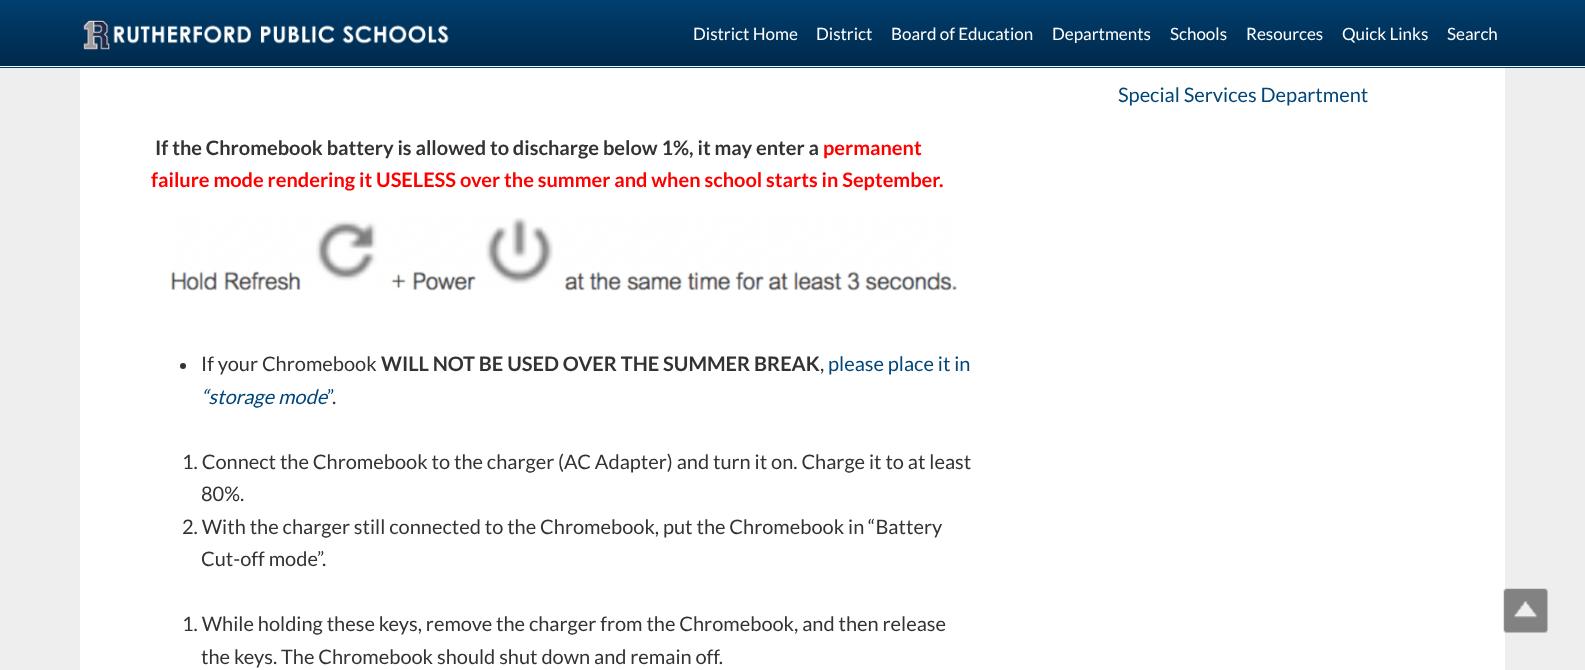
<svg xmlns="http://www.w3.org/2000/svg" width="1585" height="670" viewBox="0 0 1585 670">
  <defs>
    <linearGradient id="g1" gradientUnits="userSpaceOnUse" x1="793" y1="0" x2="793" y2="66"><stop offset="0" stop-color="#003f6f"/><stop offset="1" stop-color="#00294b"/></linearGradient>
    <linearGradient id="g2" gradientUnits="userSpaceOnUse" x1="793" y1="66" x2="793" y2="133"><stop offset="0" stop-color="#003f6f"/><stop offset="1" stop-color="#00294b"/></linearGradient>
  </defs>
  <rect width="100%" height="100%" fill="#eee"/>
  <path d="M0 0h1585v66H0z" fill="url(#g1)"/>
  <path d="M0 67h1585v1H0z" fill="url(#g2)"/>
  <path d="M0 66h1585v1H0z" fill="#f5f5f5"/>
  <image x="83" y="20" width="366" height="30" href="img/1.png"/>
  <path d="M80 68h1425v602H80z" fill="#fff"/>
  <image x="171" y="217" width="786" height="74" href="img/2.png"/>
  <circle cx="183" cy="366" r="3" fill="#333"/>
  <image x="1503" y="588" width="45" height="45" href="img/3.png"/>
  <g font-family="Lato" font-size="17" fill="#fff">
    <text x="693" y="40">District Home</text>
    <text x="816" y="40">District</text>
    <text x="891" y="40">Board of Education</text>
    <text x="1052" y="40">Departments</text>
    <text x="1170" y="40">Schools</text>
    <text x="1246" y="40">Resources</text>
    <text x="1342" y="40">Quick Links</text>
    <text x="1447" y="40">Search</text>
  </g>
  <text x="1118" y="102" font-family="Lato" font-size="20" fill="#004679">Special Services Department</text>
  <text x="155" y="155" font-family="Lato" font-size="20" font-weight="bold" fill="#333">If the Chromebook battery is allowed to discharge below 1%, it may enter a</text>
  <g font-family="Lato" font-size="20" font-weight="bold" fill="#f00">
    <text x="823" y="155">permanent</text>
    <text x="151" y="187">failure mode rendering it USELESS over the summer and when school starts in September.</text>
  </g>
  <text x="201" y="371" font-family="Lato" font-size="20" fill="#333">If your Chromebook</text>
  <text x="381" y="371" font-family="Lato" font-size="20" font-weight="bold" fill="#333">WILL NOT BE USED OVER THE SUMMER BREAK</text>
  <text x="828" y="371" font-family="Lato" font-size="20" fill="#004679">please place it in</text>
  <text x="820" y="371" font-family="Lato" font-size="20" fill="#333">,</text>
  <text x="201" y="404" font-family="Lato" font-size="20" font-style="italic" fill="#004679">“storage mode</text>
  <text x="327" y="404" font-family="Lato" font-size="20" fill="#004679">”</text>
  <g font-family="Lato" font-size="20" fill="#333">
    <text x="332" y="404">.</text>
    <text x="182" y="469">1. Connect the Chromebook to the charger (AC Adapter) and turn it on. Charge it to at least</text>
    <text x="201" y="501">80%.</text>
    <text x="182" y="534">2. With the charger still connected to the Chromebook, put the Chromebook in “Battery</text>
    <text x="201" y="566">Cut-off mode”.</text>
    <text x="182" y="631">1. While holding these keys, remove the charger from the Chromebook, and then release</text>
    <text x="201" y="664">the keys. The Chromebook should shut down and remain off.</text>
  </g>
</svg>
